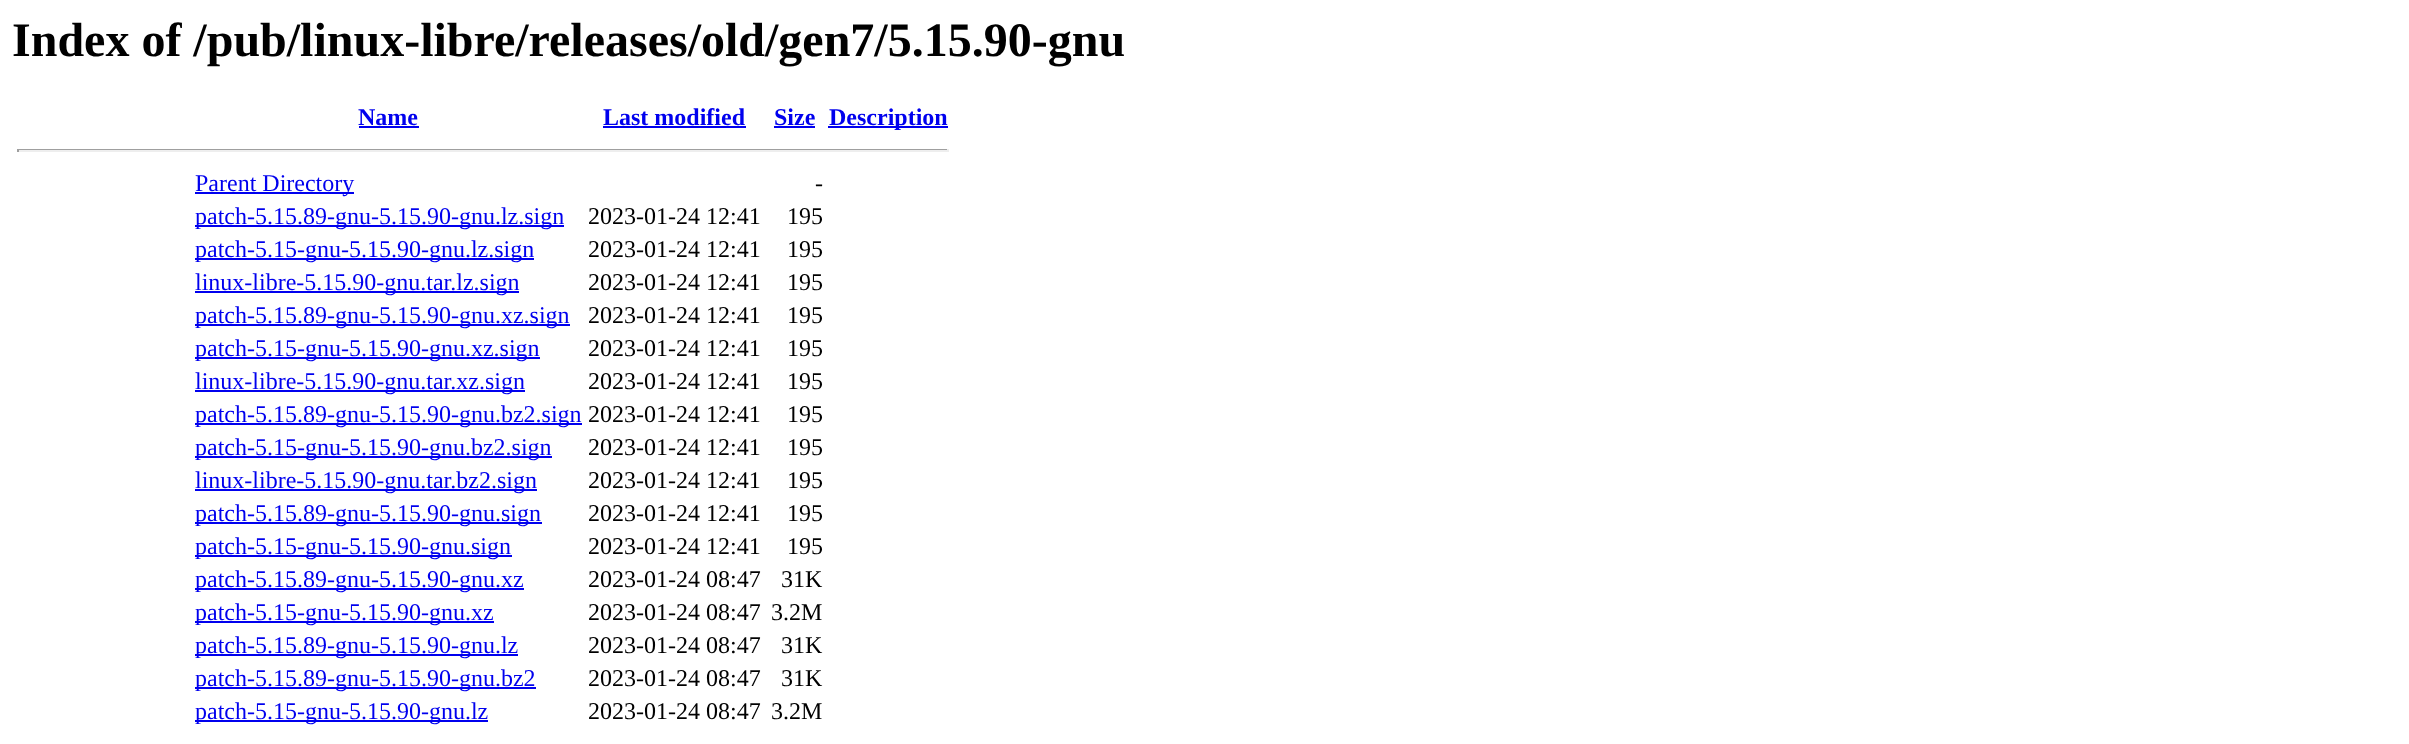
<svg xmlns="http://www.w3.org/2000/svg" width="2409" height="744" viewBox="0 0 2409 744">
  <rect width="100%" height="100%" fill="#fff"/>
  <path d="M359 126h60v2H359z" fill="#00e"/>
  <path d="M603 126h143v2H603z" fill="#00e"/>
  <path d="M774 126h41v2H774z" fill="#00e"/>
  <path d="M828 126h120v2H828z" fill="#00e"/>
  <path d="M17 149h931v1H17z" fill="#9f9f9f"/>
  <path d="M947 149h2v3H947z" fill="#eee"/>
  <path d="M17 150h931v2H17z" fill="#eee"/>
  <path d="M17 149h2v3H17z" fill="#9f9f9f"/>
  <path d="M195 192h159v2H195z" fill="#00e"/>
  <path d="M195 225h369v2H195z" fill="#00e"/>
  <path d="M195 258h339v2H195z" fill="#00e"/>
  <path d="M195 291h324v2H195z" fill="#00e"/>
  <path d="M195 324h375v2H195z" fill="#00e"/>
  <path d="M195 357h345v2H195z" fill="#00e"/>
  <path d="M195 390h330v2H195z" fill="#00e"/>
  <path d="M195 423h387v2H195z" fill="#00e"/>
  <path d="M195 456h357v2H195z" fill="#00e"/>
  <path d="M195 489h342v2H195z" fill="#00e"/>
  <path d="M195 522h347v2H195z" fill="#00e"/>
  <path d="M195 555h317v2H195z" fill="#00e"/>
  <path d="M195 588h329v2H195z" fill="#00e"/>
  <path d="M195 621h299v2H195z" fill="#00e"/>
  <path d="M195 654h323v2H195z" fill="#00e"/>
  <path d="M195 687h341v2H195z" fill="#00e"/>
  <path d="M195 720h293v2H195z" fill="#00e"/>
  <text x="12" y="56" font-family="Liberation Serif" font-size="48" font-weight="bold" fill="#000">Index of /pub/linux-libre/releases/old/gen7/5.15.90-gnu</text>
  <g font-family="Liberation Serif" font-size="24" font-weight="bold" fill="#00e">
    <text x="358" y="125">Name</text>
    <text x="603" y="125">Last modified</text>
    <text x="774" y="125">Size</text>
    <text x="829" y="125">Description</text>
  </g>
  <text x="195" y="191" font-family="Liberation Serif" font-size="24" fill="#00e">Parent Directory</text>
  <text x="815" y="191" font-family="Liberation Serif" font-size="24" fill="#000">-</text>
  <text x="195" y="224" font-family="Liberation Serif" font-size="24" fill="#00e">patch-5.15.89-gnu-5.15.90-gnu.lz.sign</text>
  <g font-family="Liberation Serif" font-size="24" fill="#000">
    <text x="588" y="224">2023-01-24 12:41</text>
    <text x="787" y="224">195</text>
  </g>
  <text x="195" y="257" font-family="Liberation Serif" font-size="24" fill="#00e">patch-5.15-gnu-5.15.90-gnu.lz.sign</text>
  <g font-family="Liberation Serif" font-size="24" fill="#000">
    <text x="588" y="257">2023-01-24 12:41</text>
    <text x="787" y="257">195</text>
  </g>
  <text x="195" y="290" font-family="Liberation Serif" font-size="24" fill="#00e">linux-libre-5.15.90-gnu.tar.lz.sign</text>
  <g font-family="Liberation Serif" font-size="24" fill="#000">
    <text x="588" y="290">2023-01-24 12:41</text>
    <text x="787" y="290">195</text>
  </g>
  <text x="195" y="323" font-family="Liberation Serif" font-size="24" fill="#00e">patch-5.15.89-gnu-5.15.90-gnu.xz.sign</text>
  <g font-family="Liberation Serif" font-size="24" fill="#000">
    <text x="588" y="323">2023-01-24 12:41</text>
    <text x="787" y="323">195</text>
  </g>
  <text x="195" y="356" font-family="Liberation Serif" font-size="24" fill="#00e">patch-5.15-gnu-5.15.90-gnu.xz.sign</text>
  <g font-family="Liberation Serif" font-size="24" fill="#000">
    <text x="588" y="356">2023-01-24 12:41</text>
    <text x="787" y="356">195</text>
  </g>
  <text x="195" y="389" font-family="Liberation Serif" font-size="24" fill="#00e">linux-libre-5.15.90-gnu.tar.xz.sign</text>
  <g font-family="Liberation Serif" font-size="24" fill="#000">
    <text x="588" y="389">2023-01-24 12:41</text>
    <text x="787" y="389">195</text>
  </g>
  <text x="195" y="422" font-family="Liberation Serif" font-size="24" fill="#00e">patch-5.15.89-gnu-5.15.90-gnu.bz2.sign</text>
  <g font-family="Liberation Serif" font-size="24" fill="#000">
    <text x="588" y="422">2023-01-24 12:41</text>
    <text x="787" y="422">195</text>
  </g>
  <text x="195" y="455" font-family="Liberation Serif" font-size="24" fill="#00e">patch-5.15-gnu-5.15.90-gnu.bz2.sign</text>
  <g font-family="Liberation Serif" font-size="24" fill="#000">
    <text x="588" y="455">2023-01-24 12:41</text>
    <text x="787" y="455">195</text>
  </g>
  <text x="195" y="488" font-family="Liberation Serif" font-size="24" fill="#00e">linux-libre-5.15.90-gnu.tar.bz2.sign</text>
  <g font-family="Liberation Serif" font-size="24" fill="#000">
    <text x="588" y="488">2023-01-24 12:41</text>
    <text x="787" y="488">195</text>
  </g>
  <text x="195" y="521" font-family="Liberation Serif" font-size="24" fill="#00e">patch-5.15.89-gnu-5.15.90-gnu.sign</text>
  <g font-family="Liberation Serif" font-size="24" fill="#000">
    <text x="588" y="521">2023-01-24 12:41</text>
    <text x="787" y="521">195</text>
  </g>
  <text x="195" y="554" font-family="Liberation Serif" font-size="24" fill="#00e">patch-5.15-gnu-5.15.90-gnu.sign</text>
  <g font-family="Liberation Serif" font-size="24" fill="#000">
    <text x="588" y="554">2023-01-24 12:41</text>
    <text x="787" y="554">195</text>
  </g>
  <text x="195" y="587" font-family="Liberation Serif" font-size="24" fill="#00e">patch-5.15.89-gnu-5.15.90-gnu.xz</text>
  <g font-family="Liberation Serif" font-size="24" fill="#000">
    <text x="588" y="587">2023-01-24 08:47</text>
    <text x="781" y="587">31K</text>
  </g>
  <text x="195" y="620" font-family="Liberation Serif" font-size="24" fill="#00e">patch-5.15-gnu-5.15.90-gnu.xz</text>
  <g font-family="Liberation Serif" font-size="24" fill="#000">
    <text x="588" y="620">2023-01-24 08:47</text>
    <text x="771" y="620">3.2M</text>
  </g>
  <text x="195" y="653" font-family="Liberation Serif" font-size="24" fill="#00e">patch-5.15.89-gnu-5.15.90-gnu.lz</text>
  <g font-family="Liberation Serif" font-size="24" fill="#000">
    <text x="588" y="653">2023-01-24 08:47</text>
    <text x="781" y="653">31K</text>
  </g>
  <text x="195" y="686" font-family="Liberation Serif" font-size="24" fill="#00e">patch-5.15.89-gnu-5.15.90-gnu.bz2</text>
  <g font-family="Liberation Serif" font-size="24" fill="#000">
    <text x="588" y="686">2023-01-24 08:47</text>
    <text x="781" y="686">31K</text>
  </g>
  <text x="195" y="719" font-family="Liberation Serif" font-size="24" fill="#00e">patch-5.15-gnu-5.15.90-gnu.lz</text>
  <g font-family="Liberation Serif" font-size="24" fill="#000">
    <text x="588" y="719">2023-01-24 08:47</text>
    <text x="771" y="719">3.2M</text>
  </g>
</svg>
